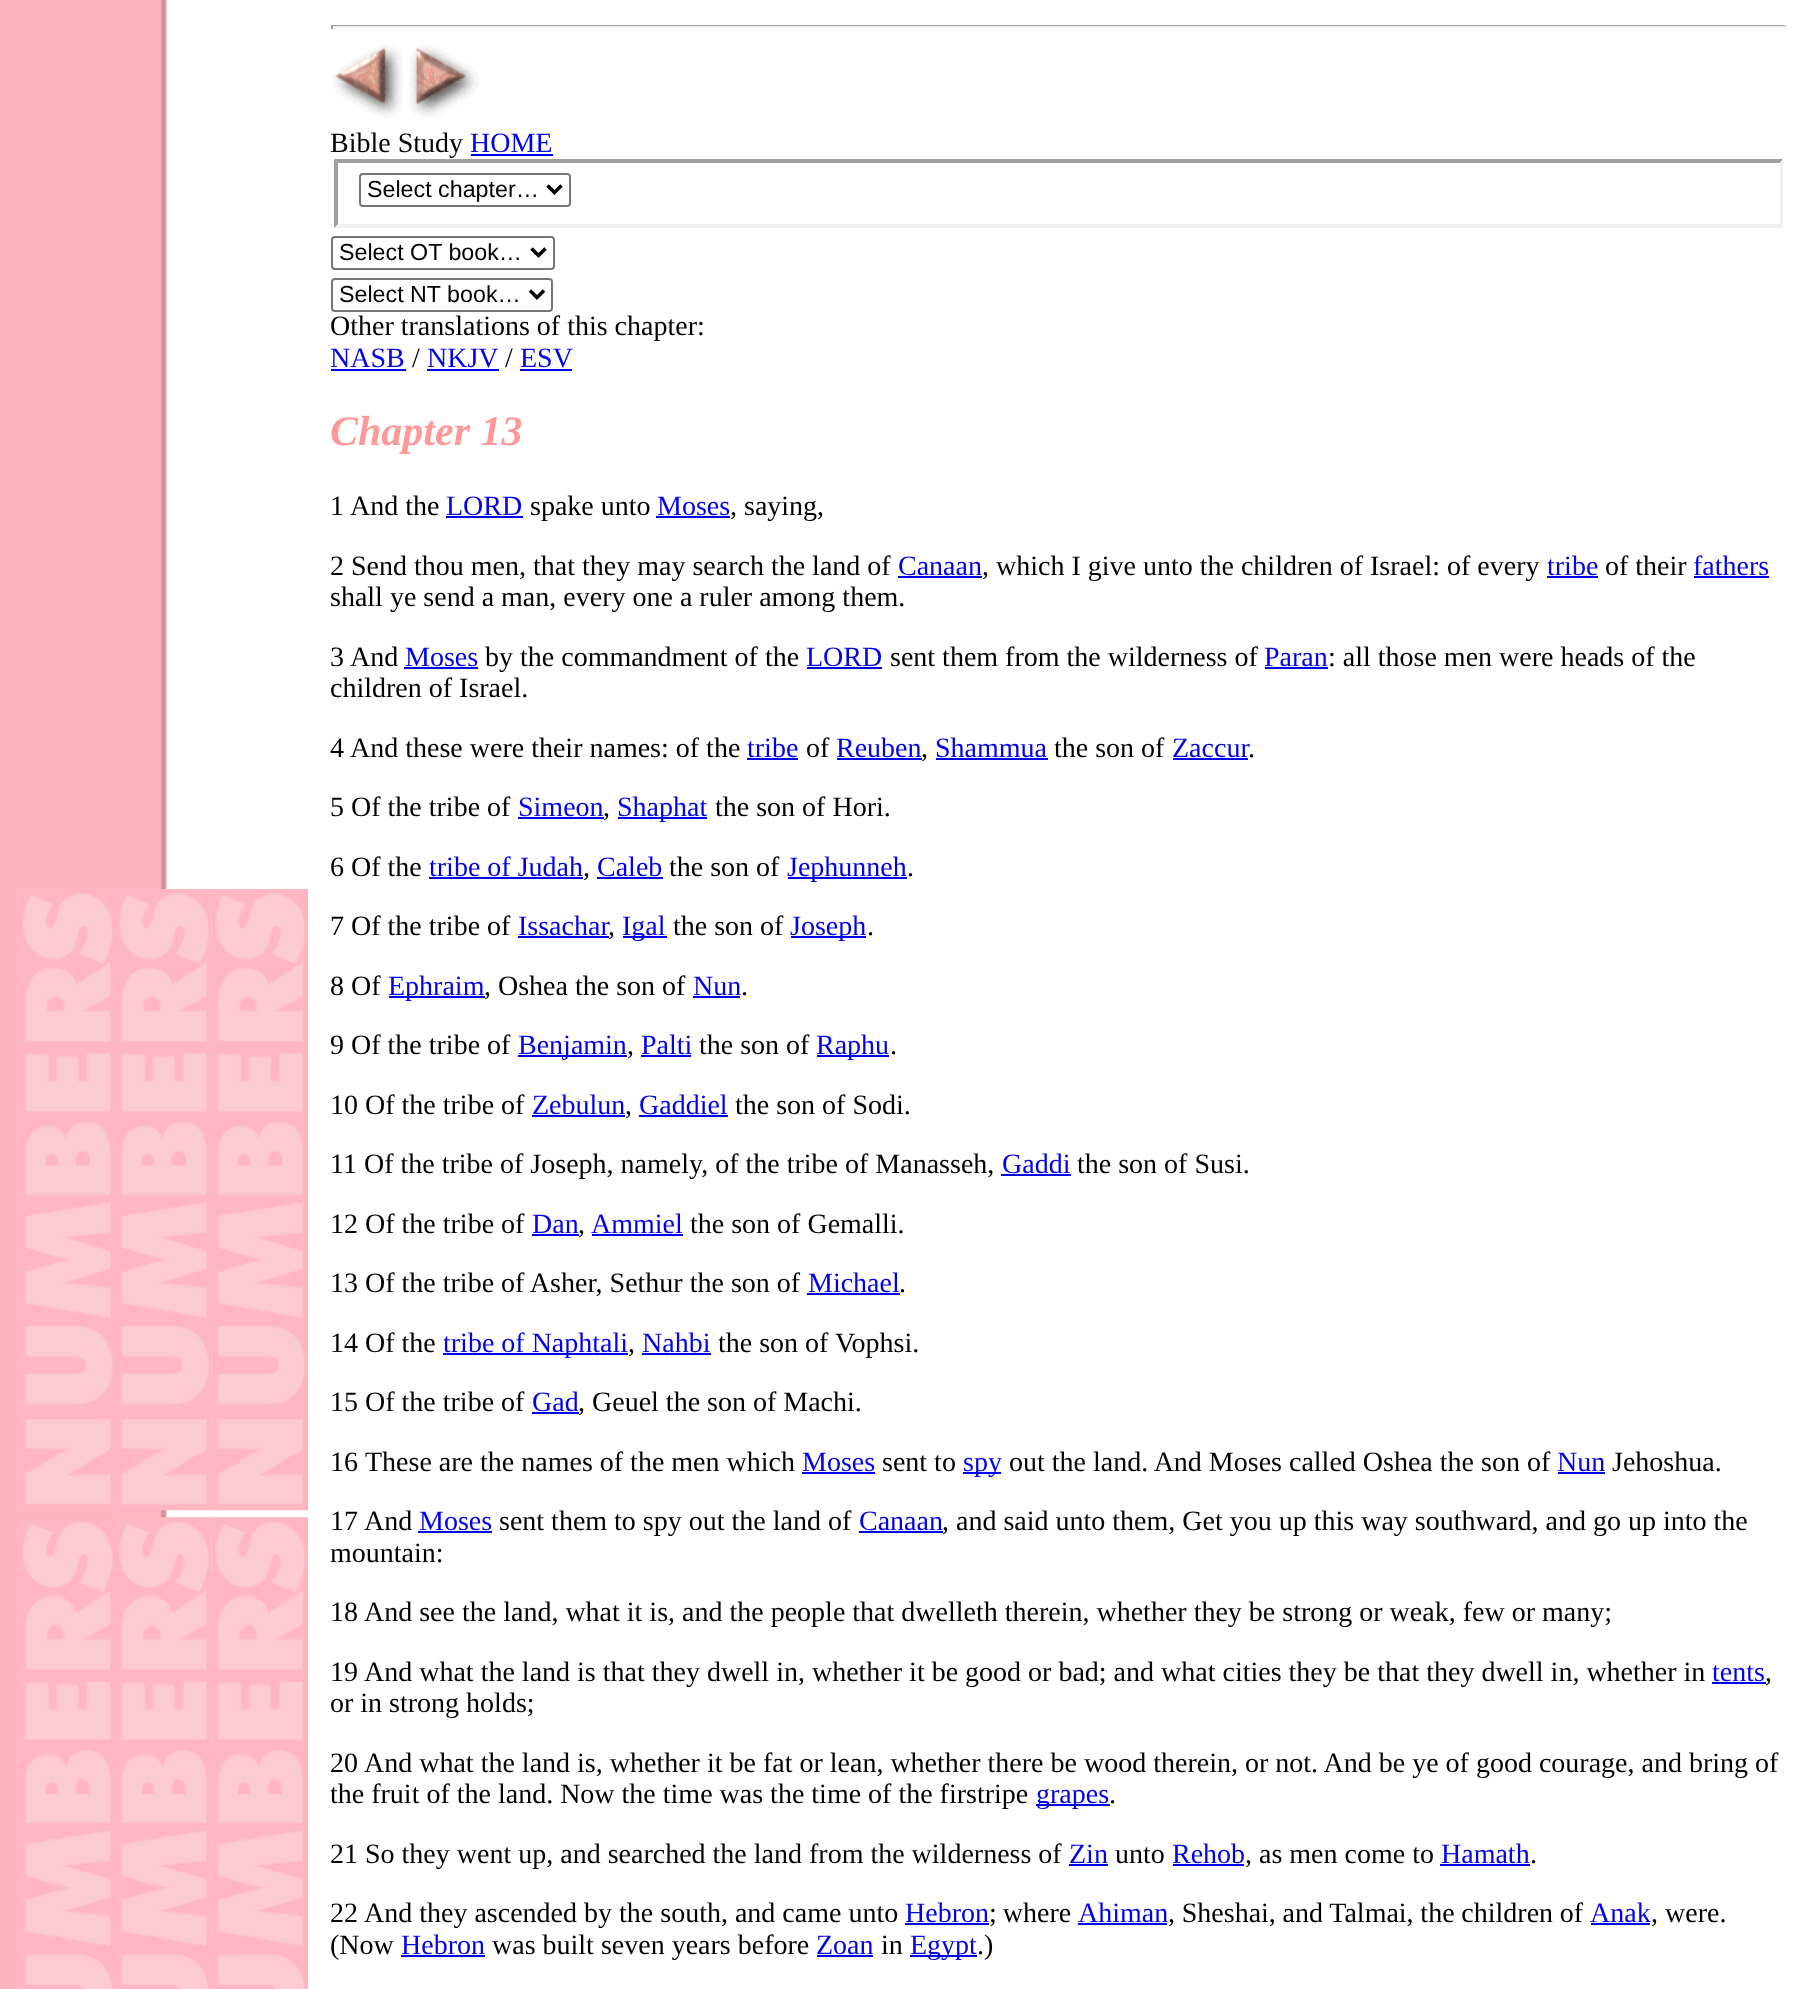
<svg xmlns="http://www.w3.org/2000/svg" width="1806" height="1989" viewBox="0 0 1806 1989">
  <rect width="100%" height="100%" fill="#fff"/>
  <image x="0" y="0" width="167" height="1989" href="img/1.png"/>
  <image x="22" y="893" width="91" height="612" href="img/2.png"/>
  <image x="119" y="889" width="93" height="622" href="img/3.png"/>
  <image x="211" y="889" width="97" height="622" href="img/4.png"/>
  <image x="22" y="1521" width="91" height="468" href="img/5.png"/>
  <image x="119" y="1517" width="93" height="472" href="img/6.png"/>
  <image x="211" y="1517" width="97" height="472" href="img/7.png"/>
  <path d="M331 25h1456v1H331z" fill="#9f9f9f"/>
  <path d="M1785 25h2v4H1785z" fill="#eee"/>
  <path d="M331 26h1456v2H331z" fill="#eee"/>
  <path d="M331 25h2v4H331z" fill="#9f9f9f"/>
  <image x="333" y="44" width="71" height="77" href="img/8.png"/>
  <image x="408" y="44" width="73" height="77" href="img/9.png"/>
  <path d="M471 154h82v2H471z" fill="#00e"/>
  <path d="M334 159H1783L1780 163H338Z" fill="#9f9f9f"/>
  <path d="M1783 159V228L1780 224V163Z" fill="#efefef"/>
  <path d="M1783 228H334L338 224H1780Z" fill="#efefef"/>
  <path d="M334 228V159L338 163V224Z" fill="#9f9f9f"/>
  <rect x="360" y="174" width="210" height="32" rx="3" fill="none" stroke="#767676" stroke-width="2"/>
  <path d="M547.5 185.5L554.5 192.5L561.5 185.5" fill="none" stroke="#000" stroke-width="3.5"/>
  <rect x="332" y="237" width="222" height="32" rx="3" fill="none" stroke="#767676" stroke-width="2"/>
  <path d="M531.5 248.5L538.5 255.5L545.5 248.5" fill="none" stroke="#000" stroke-width="3.5"/>
  <rect x="332" y="279" width="220" height="32" rx="3" fill="none" stroke="#767676" stroke-width="2"/>
  <path d="M530 290.5L537 297.5L544 290.5" fill="none" stroke="#000" stroke-width="3.5"/>
  <path d="M331 369h75v2H331z" fill="#00e"/>
  <path d="M427 369h72v2H427z" fill="#00e"/>
  <path d="M520 369h52v2H520z" fill="#00e"/>
  <path d="M446 516h77v2H446z" fill="#00e"/>
  <path d="M656 516h74v2H656z" fill="#00e"/>
  <path d="M898 576h84v2H898z" fill="#00e"/>
  <path d="M1547 576h51v2H1547z" fill="#00e"/>
  <path d="M1694 576h75v2H1694z" fill="#00e"/>
  <path d="M404 667h74v2H404z" fill="#00e"/>
  <path d="M807 667h75v2H807z" fill="#00e"/>
  <path d="M1265 667h63v2H1265z" fill="#00e"/>
  <path d="M747 758h51v2H747z" fill="#00e"/>
  <path d="M837 758h85v2H837z" fill="#00e"/>
  <path d="M936 758h112v2H936z" fill="#00e"/>
  <path d="M1173 758h75v2H1173z" fill="#00e"/>
  <path d="M518 817h86v2H518z" fill="#00e"/>
  <path d="M618 817h89v2H618z" fill="#00e"/>
  <path d="M429 877h154v2H429z" fill="#00e"/>
  <path d="M597 877h66v2H597z" fill="#00e"/>
  <path d="M788 877h119v2H788z" fill="#00e"/>
  <path d="M518 936h91v2H518z" fill="#00e"/>
  <path d="M623 936h44v2H623z" fill="#00e"/>
  <path d="M791 936h75v2H791z" fill="#00e"/>
  <path d="M389 996h96v2H389z" fill="#00e"/>
  <path d="M693 996h47v2H693z" fill="#00e"/>
  <path d="M518 1055h109v2H518z" fill="#00e"/>
  <path d="M641 1055h50v2H641z" fill="#00e"/>
  <path d="M817 1055h72v2H817z" fill="#00e"/>
  <path d="M532 1115h93v2H532z" fill="#00e"/>
  <path d="M639 1115h89v2H639z" fill="#00e"/>
  <path d="M1001 1174h70v2H1001z" fill="#00e"/>
  <path d="M532 1234h47v2H532z" fill="#00e"/>
  <path d="M592 1234h91v2H592z" fill="#00e"/>
  <path d="M807 1293h93v2H807z" fill="#00e"/>
  <path d="M443 1353h185v2H443z" fill="#00e"/>
  <path d="M642 1353h69v2H642z" fill="#00e"/>
  <path d="M532 1412h47v2H532z" fill="#00e"/>
  <path d="M802 1472h73v2H802z" fill="#00e"/>
  <path d="M963 1472h38v2H963z" fill="#00e"/>
  <path d="M1558 1472h47v2H1558z" fill="#00e"/>
  <path d="M418 1531h74v2H418z" fill="#00e"/>
  <path d="M859 1531h84v2H859z" fill="#00e"/>
  <path d="M1712 1682h54v2H1712z" fill="#00e"/>
  <path d="M1036 1804h74v2H1036z" fill="#00e"/>
  <path d="M1069 1864h39v2H1069z" fill="#00e"/>
  <path d="M1173 1864h71v2H1173z" fill="#00e"/>
  <path d="M1440 1864h90v2H1440z" fill="#00e"/>
  <path d="M905 1923h84v2H905z" fill="#00e"/>
  <path d="M1078 1923h89v2H1078z" fill="#00e"/>
  <path d="M1591 1923h59v2H1591z" fill="#00e"/>
  <path d="M401 1955h84v2H401z" fill="#00e"/>
  <path d="M817 1955h56v2H817z" fill="#00e"/>
  <path d="M910 1955h67v2H910z" fill="#00e"/>
  <text x="330" y="152" font-family="Liberation Serif" font-size="28" fill="#000">Bible Study</text>
  <text x="470" y="152" font-family="Liberation Serif" font-size="28" fill="#00e">HOME</text>
  <g font-family="Liberation Sans" font-size="23.25" fill="#000">
    <text x="367" y="197">Select chapter…</text>
    <text x="339" y="260">Select OT book…</text>
    <text x="339" y="302">Select NT book…</text>
  </g>
  <text x="330" y="335" font-family="Liberation Serif" font-size="28" fill="#000">Other translations of this chapter:</text>
  <text x="330" y="367" font-family="Liberation Serif" font-size="28" fill="#00e">NASB</text>
  <text x="412" y="367" font-family="Liberation Serif" font-size="28" fill="#000">/</text>
  <text x="427" y="367" font-family="Liberation Serif" font-size="28" fill="#00e">NKJV</text>
  <text x="505" y="367" font-family="Liberation Serif" font-size="28" fill="#000">/</text>
  <text x="520" y="367" font-family="Liberation Serif" font-size="28" fill="#00e">ESV</text>
  <text x="330" y="445" font-family="Liberation Serif" font-size="42" font-weight="bold" font-style="italic" fill="#f99">Chapter 13</text>
  <g font-family="Liberation Serif" font-size="28" fill="#000">
    <text x="330" y="515">1</text>
    <text x="350" y="515">And the</text>
  </g>
  <text x="446" y="515" font-family="Liberation Serif" font-size="28" fill="#00e">LORD</text>
  <text x="530" y="515" font-family="Liberation Serif" font-size="28" fill="#000">spake unto</text>
  <text x="657" y="515" font-family="Liberation Serif" font-size="28" fill="#00e">Moses</text>
  <g font-family="Liberation Serif" font-size="28" fill="#000">
    <text x="730" y="515">, saying,</text>
    <text x="330" y="575">2 Send thou men, that they may search the land of</text>
  </g>
  <text x="898" y="575" font-family="Liberation Serif" font-size="28" fill="#00e">Canaan</text>
  <text x="982" y="575" font-family="Liberation Serif" font-size="28" fill="#000">, which I give unto the children of Israel: of every</text>
  <text x="1547" y="575" font-family="Liberation Serif" font-size="28" fill="#00e">tribe</text>
  <text x="1605" y="575" font-family="Liberation Serif" font-size="28" fill="#000">of their</text>
  <text x="1693" y="575" font-family="Liberation Serif" font-size="28" fill="#00e">fathers</text>
  <g font-family="Liberation Serif" font-size="28" fill="#000">
    <text x="330" y="606">shall ye send a man, every one a ruler among them.</text>
    <text x="330" y="666">3</text>
    <text x="350" y="666">And</text>
  </g>
  <text x="405" y="666" font-family="Liberation Serif" font-size="28" fill="#00e">Moses</text>
  <text x="485" y="666" font-family="Liberation Serif" font-size="28" fill="#000">by the commandment of the</text>
  <text x="806" y="666" font-family="Liberation Serif" font-size="28" fill="#00e">LORD</text>
  <text x="890" y="666" font-family="Liberation Serif" font-size="28" fill="#000">sent them from the wilderness of</text>
  <text x="1264" y="666" font-family="Liberation Serif" font-size="28" fill="#00e">Paran</text>
  <g font-family="Liberation Serif" font-size="28" fill="#000">
    <text x="1328" y="666">: all those men were heads of the</text>
    <text x="330" y="697">children of Israel.</text>
    <text x="330" y="757">4</text>
    <text x="350" y="757">And these were their names: of the</text>
  </g>
  <text x="747" y="757" font-family="Liberation Serif" font-size="28" fill="#00e">tribe</text>
  <text x="806" y="757" font-family="Liberation Serif" font-size="28" fill="#000">of</text>
  <text x="836" y="757" font-family="Liberation Serif" font-size="28" fill="#00e">Reuben</text>
  <text x="921" y="757" font-family="Liberation Serif" font-size="28" fill="#000">,</text>
  <text x="935" y="757" font-family="Liberation Serif" font-size="28" fill="#00e">Shammua</text>
  <text x="1054" y="757" font-family="Liberation Serif" font-size="28" fill="#000">the son of</text>
  <text x="1172" y="757" font-family="Liberation Serif" font-size="28" fill="#00e">Zaccur</text>
  <g font-family="Liberation Serif" font-size="28" fill="#000">
    <text x="1248" y="757">.</text>
    <text x="330" y="816">5 Of the tribe of</text>
  </g>
  <text x="518" y="816" font-family="Liberation Serif" font-size="28" fill="#00e">Simeon</text>
  <text x="603" y="816" font-family="Liberation Serif" font-size="28" fill="#000">,</text>
  <text x="617" y="816" font-family="Liberation Serif" font-size="28" fill="#00e">Shaphat</text>
  <g font-family="Liberation Serif" font-size="28" fill="#000">
    <text x="715" y="816">the son of Hori.</text>
    <text x="330" y="876">6 Of the</text>
  </g>
  <text x="429" y="876" font-family="Liberation Serif" font-size="28" fill="#00e">tribe of Judah</text>
  <text x="583" y="876" font-family="Liberation Serif" font-size="28" fill="#000">,</text>
  <text x="597" y="876" font-family="Liberation Serif" font-size="28" fill="#00e">Caleb</text>
  <text x="669" y="876" font-family="Liberation Serif" font-size="28" fill="#000">the son of</text>
  <text x="787" y="876" font-family="Liberation Serif" font-size="28" fill="#00e">Jephunneh</text>
  <g font-family="Liberation Serif" font-size="28" fill="#000">
    <text x="907" y="876">.</text>
    <text x="330" y="935">7 Of the tribe of</text>
  </g>
  <text x="518" y="935" font-family="Liberation Serif" font-size="28" fill="#00e">Issachar</text>
  <text x="608" y="935" font-family="Liberation Serif" font-size="28" fill="#000">,</text>
  <text x="622" y="935" font-family="Liberation Serif" font-size="28" fill="#00e">Igal</text>
  <text x="673" y="935" font-family="Liberation Serif" font-size="28" fill="#000">the son of</text>
  <text x="790" y="935" font-family="Liberation Serif" font-size="28" fill="#00e">Joseph</text>
  <g font-family="Liberation Serif" font-size="28" fill="#000">
    <text x="867" y="935">.</text>
    <text x="330" y="995">8 Of</text>
  </g>
  <text x="388" y="995" font-family="Liberation Serif" font-size="28" fill="#00e">Ephraim</text>
  <text x="484" y="995" font-family="Liberation Serif" font-size="28" fill="#000">, Oshea the son of</text>
  <text x="693" y="995" font-family="Liberation Serif" font-size="28" fill="#00e">Nun</text>
  <g font-family="Liberation Serif" font-size="28" fill="#000">
    <text x="741" y="995">.</text>
    <text x="330" y="1054">9 Of the tribe of</text>
  </g>
  <text x="518" y="1054" font-family="Liberation Serif" font-size="28" fill="#00e">Benjamin</text>
  <text x="627" y="1054" font-family="Liberation Serif" font-size="28" fill="#000">,</text>
  <text x="641" y="1054" font-family="Liberation Serif" font-size="28" fill="#00e">Palti</text>
  <text x="699" y="1054" font-family="Liberation Serif" font-size="28" fill="#000">the son of</text>
  <text x="816" y="1054" font-family="Liberation Serif" font-size="28" fill="#00e">Raphu</text>
  <g font-family="Liberation Serif" font-size="28" fill="#000">
    <text x="890" y="1054">.</text>
    <text x="330" y="1114">10 Of the tribe of</text>
  </g>
  <text x="532" y="1114" font-family="Liberation Serif" font-size="28" fill="#00e">Zebulun</text>
  <text x="625" y="1114" font-family="Liberation Serif" font-size="28" fill="#000">,</text>
  <text x="639" y="1114" font-family="Liberation Serif" font-size="28" fill="#00e">Gaddiel</text>
  <g font-family="Liberation Serif" font-size="28" fill="#000">
    <text x="735" y="1114">the son of Sodi.</text>
    <text x="330" y="1173">11 Of the tribe of Joseph, namely, of the tribe of Manasseh,</text>
  </g>
  <text x="1002" y="1173" font-family="Liberation Serif" font-size="28" fill="#00e">Gaddi</text>
  <g font-family="Liberation Serif" font-size="28" fill="#000">
    <text x="1077" y="1173">the son of Susi.</text>
    <text x="330" y="1233">12 Of the tribe of</text>
  </g>
  <text x="532" y="1233" font-family="Liberation Serif" font-size="28" fill="#00e">Dan</text>
  <text x="578" y="1233" font-family="Liberation Serif" font-size="28" fill="#000">,</text>
  <text x="591" y="1233" font-family="Liberation Serif" font-size="28" fill="#00e">Ammiel</text>
  <g font-family="Liberation Serif" font-size="28" fill="#000">
    <text x="690" y="1233">the son of Gemalli.</text>
    <text x="330" y="1292">13 Of the tribe of Asher, Sethur the son of</text>
  </g>
  <text x="808" y="1292" font-family="Liberation Serif" font-size="28" fill="#00e">Michael</text>
  <g font-family="Liberation Serif" font-size="28" fill="#000">
    <text x="899" y="1292">.</text>
    <text x="330" y="1352">14 Of the</text>
  </g>
  <text x="443" y="1352" font-family="Liberation Serif" font-size="28" fill="#00e">tribe of Naphtali</text>
  <text x="628" y="1352" font-family="Liberation Serif" font-size="28" fill="#000">,</text>
  <text x="642" y="1352" font-family="Liberation Serif" font-size="28" fill="#00e">Nahbi</text>
  <g font-family="Liberation Serif" font-size="28" fill="#000">
    <text x="718" y="1352">the son of Vophsi.</text>
    <text x="330" y="1411">15 Of the tribe of</text>
  </g>
  <text x="532" y="1411" font-family="Liberation Serif" font-size="28" fill="#00e">Gad</text>
  <g font-family="Liberation Serif" font-size="28" fill="#000">
    <text x="578" y="1411">, Geuel the son of Machi.</text>
    <text x="330" y="1471">16</text>
    <text x="365" y="1471">These are the names of the men which</text>
  </g>
  <text x="802" y="1471" font-family="Liberation Serif" font-size="28" fill="#00e">Moses</text>
  <text x="882" y="1471" font-family="Liberation Serif" font-size="28" fill="#000">sent to</text>
  <text x="963" y="1471" font-family="Liberation Serif" font-size="28" fill="#00e">spy</text>
  <text x="1009" y="1471" font-family="Liberation Serif" font-size="28" fill="#000">out the land. And Moses called Oshea the son of</text>
  <text x="1557" y="1471" font-family="Liberation Serif" font-size="28" fill="#00e">Nun</text>
  <g font-family="Liberation Serif" font-size="28" fill="#000">
    <text x="1612" y="1471">Jehoshua.</text>
    <text x="330" y="1530">17</text>
    <text x="364" y="1530">And</text>
  </g>
  <text x="419" y="1530" font-family="Liberation Serif" font-size="28" fill="#00e">Moses</text>
  <text x="499" y="1530" font-family="Liberation Serif" font-size="28" fill="#000">sent them to spy out the land of</text>
  <text x="859" y="1530" font-family="Liberation Serif" font-size="28" fill="#00e">Canaan</text>
  <g font-family="Liberation Serif" font-size="28" fill="#000">
    <text x="942" y="1530">, and said unto them, Get you up this way southward, and go up into the</text>
    <text x="330" y="1562">mountain:</text>
    <text x="330" y="1621">18</text>
    <text x="364" y="1621">And see the land, what it is, and the people that dwelleth therein, whether they be strong or weak, few or many;</text>
    <text x="330" y="1681">19</text>
    <text x="364" y="1681">And what the land is that they dwell in, whether it be good or bad; and what cities they be that they dwell in, whether in</text>
  </g>
  <text x="1712" y="1681" font-family="Liberation Serif" font-size="28" fill="#00e">tents</text>
  <g font-family="Liberation Serif" font-size="28" fill="#000">
    <text x="1765" y="1681">,</text>
    <text x="330" y="1712">or in strong holds;</text>
    <text x="330" y="1772">20</text>
    <text x="364" y="1772">And what the land is, whether it be fat or lean, whether there be wood therein, or not. And be ye of good courage, and bring of</text>
    <text x="330" y="1803">the fruit of the land. Now the time was the time of the firstripe</text>
  </g>
  <text x="1036" y="1803" font-family="Liberation Serif" font-size="28" fill="#00e">grapes</text>
  <g font-family="Liberation Serif" font-size="28" fill="#000">
    <text x="1109" y="1803">.</text>
    <text x="330" y="1863">21 So they went up, and searched the land from the wilderness of</text>
  </g>
  <text x="1069" y="1863" font-family="Liberation Serif" font-size="28" fill="#00e">Zin</text>
  <text x="1115" y="1863" font-family="Liberation Serif" font-size="28" fill="#000">unto</text>
  <text x="1172" y="1863" font-family="Liberation Serif" font-size="28" fill="#00e">Rehob</text>
  <text x="1245" y="1863" font-family="Liberation Serif" font-size="28" fill="#000">, as men come to</text>
  <text x="1441" y="1863" font-family="Liberation Serif" font-size="28" fill="#00e">Hamath</text>
  <g font-family="Liberation Serif" font-size="28" fill="#000">
    <text x="1530" y="1863">.</text>
    <text x="330" y="1922">22</text>
    <text x="364" y="1922">And they ascended by the south, and came unto</text>
  </g>
  <text x="905" y="1922" font-family="Liberation Serif" font-size="28" fill="#00e">Hebron</text>
  <text x="989" y="1922" word-spacing="-1" font-family="Liberation Serif" font-size="28" fill="#000">; where</text>
  <text x="1078" y="1922" font-family="Liberation Serif" font-size="28" fill="#00e">Ahiman</text>
  <text x="1168" y="1922" word-spacing="-0.25" font-family="Liberation Serif" font-size="28" fill="#000">, Sheshai, and Talmai, the children of</text>
  <text x="1590" y="1922" font-family="Liberation Serif" font-size="28" fill="#00e">Anak</text>
  <g font-family="Liberation Serif" font-size="28" fill="#000">
    <text x="1651" y="1922">, were.</text>
    <text x="330" y="1954">(Now</text>
  </g>
  <text x="401" y="1954" font-family="Liberation Serif" font-size="28" fill="#00e">Hebron</text>
  <text x="492" y="1954" font-family="Liberation Serif" font-size="28" fill="#000">was built seven years before</text>
  <text x="816" y="1954" font-family="Liberation Serif" font-size="28" fill="#00e">Zoan</text>
  <text x="881" y="1954" font-family="Liberation Serif" font-size="28" fill="#000">in</text>
  <text x="910" y="1954" font-family="Liberation Serif" font-size="28" fill="#00e">Egypt</text>
  <text x="977" y="1954" font-family="Liberation Serif" font-size="28" fill="#000">.)</text>
</svg>
